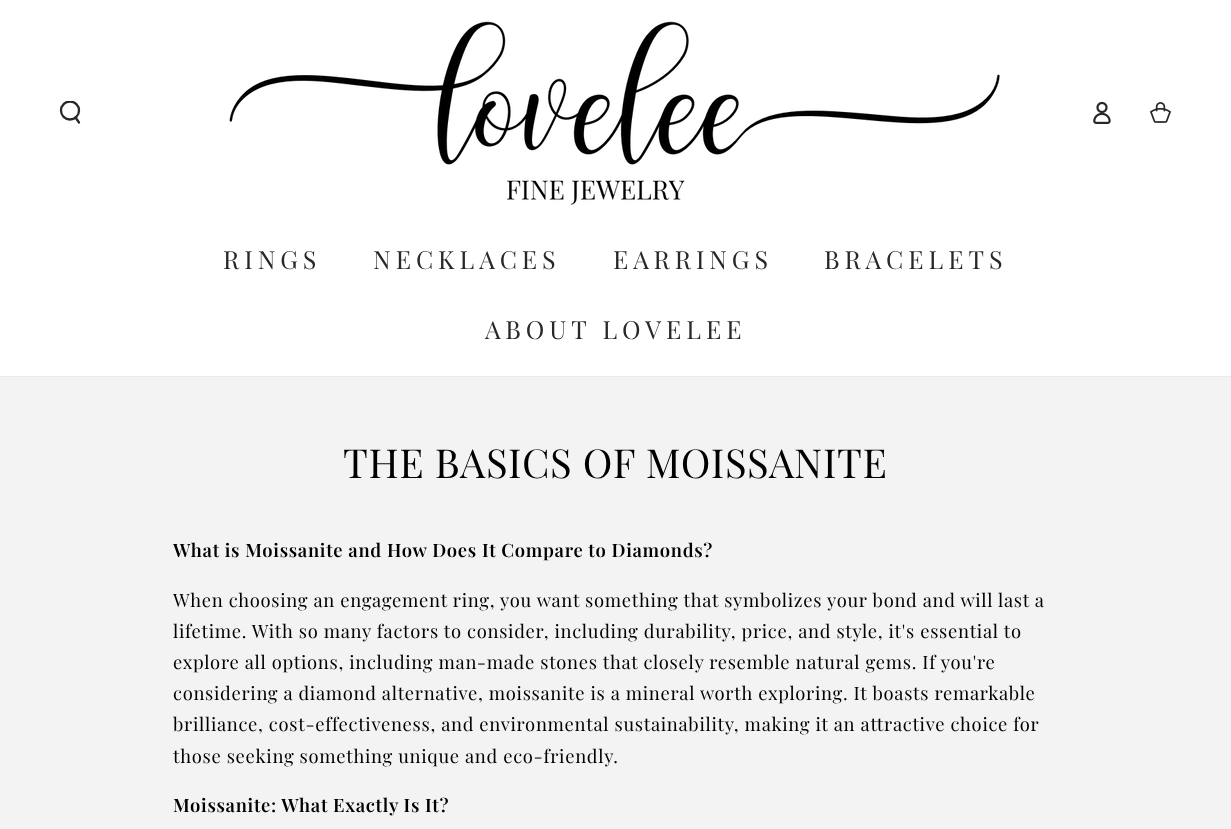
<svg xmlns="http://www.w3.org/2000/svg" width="1231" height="829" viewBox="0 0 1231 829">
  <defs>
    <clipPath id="clip1"><path d="M59 101h23v23H59z"/></clipPath>
  </defs>
  <rect width="100%" height="100%" fill="#f3f3f3"/>
  <path d="M0 376h1231v1H0z" fill="#e9eaeb"/>
  <path d="M0 0h1231v376H0z" fill="#fff"/>
  <g clip-path="url(#clip1)">
    <circle cx="70" cy="110.5" r="9" fill="none" stroke="#282828" stroke-width="2.3"/>
  </g>
  <path d="M75.5 117.5L79 122.5" fill="none" stroke="#282828" stroke-width="2.3" stroke-linecap="round"/>
  <image x="229" y="21" width="771" height="184" href="img/1.png"/>
  <image x="1093" y="101" width="18" height="23" href="img/2.png"/>
  <image x="1149" y="102" width="22" height="21" href="img/3.png"/>
  <g font-family="Playfair Display" font-size="25" letter-spacing="5" fill="#282828">
    <text x="223" y="269">RINGS</text>
    <text x="373" y="269">NECKLACES</text>
    <text x="613" y="269">EARRINGS</text>
    <text x="824" y="269">BRACELETS</text>
    <text x="485" y="339">ABOUT LOVELEE</text>
  </g>
  <text x="343" y="478" font-family="Playfair Display" font-size="40" letter-spacing="0.6" fill="#000">THE BASICS OF MOISSANITE</text>
  <text x="173" y="557" font-family="Playfair Display" font-size="18.4" font-weight="600" letter-spacing="0.69" fill="#000">What is Moissanite and How Does It Compare to Diamonds?</text>
  <g font-family="Playfair Display" font-size="18.4" letter-spacing="0.69" fill="#000">
    <text x="173" y="607">When choosing an engagement ring, you want something that symbolizes your bond and will last a</text>
    <text x="173" y="638">lifetime. With so many factors to consider, including durability, price, and style, it's essential to</text>
    <text x="173" y="669">explore all options, including man-made stones that closely resemble natural gems. If you're</text>
    <text x="173" y="700">considering a diamond alternative, moissanite is a mineral worth exploring. It boasts remarkable</text>
    <text x="173" y="731">brilliance, cost-effectiveness, and environmental sustainability, making it an attractive choice for</text>
    <text x="173" y="763">those seeking something unique and eco-friendly.</text>
  </g>
  <text x="173" y="812" font-family="Playfair Display" font-size="18.4" font-weight="600" letter-spacing="0.69" fill="#000">Moissanite: What Exactly Is It?</text>
</svg>
